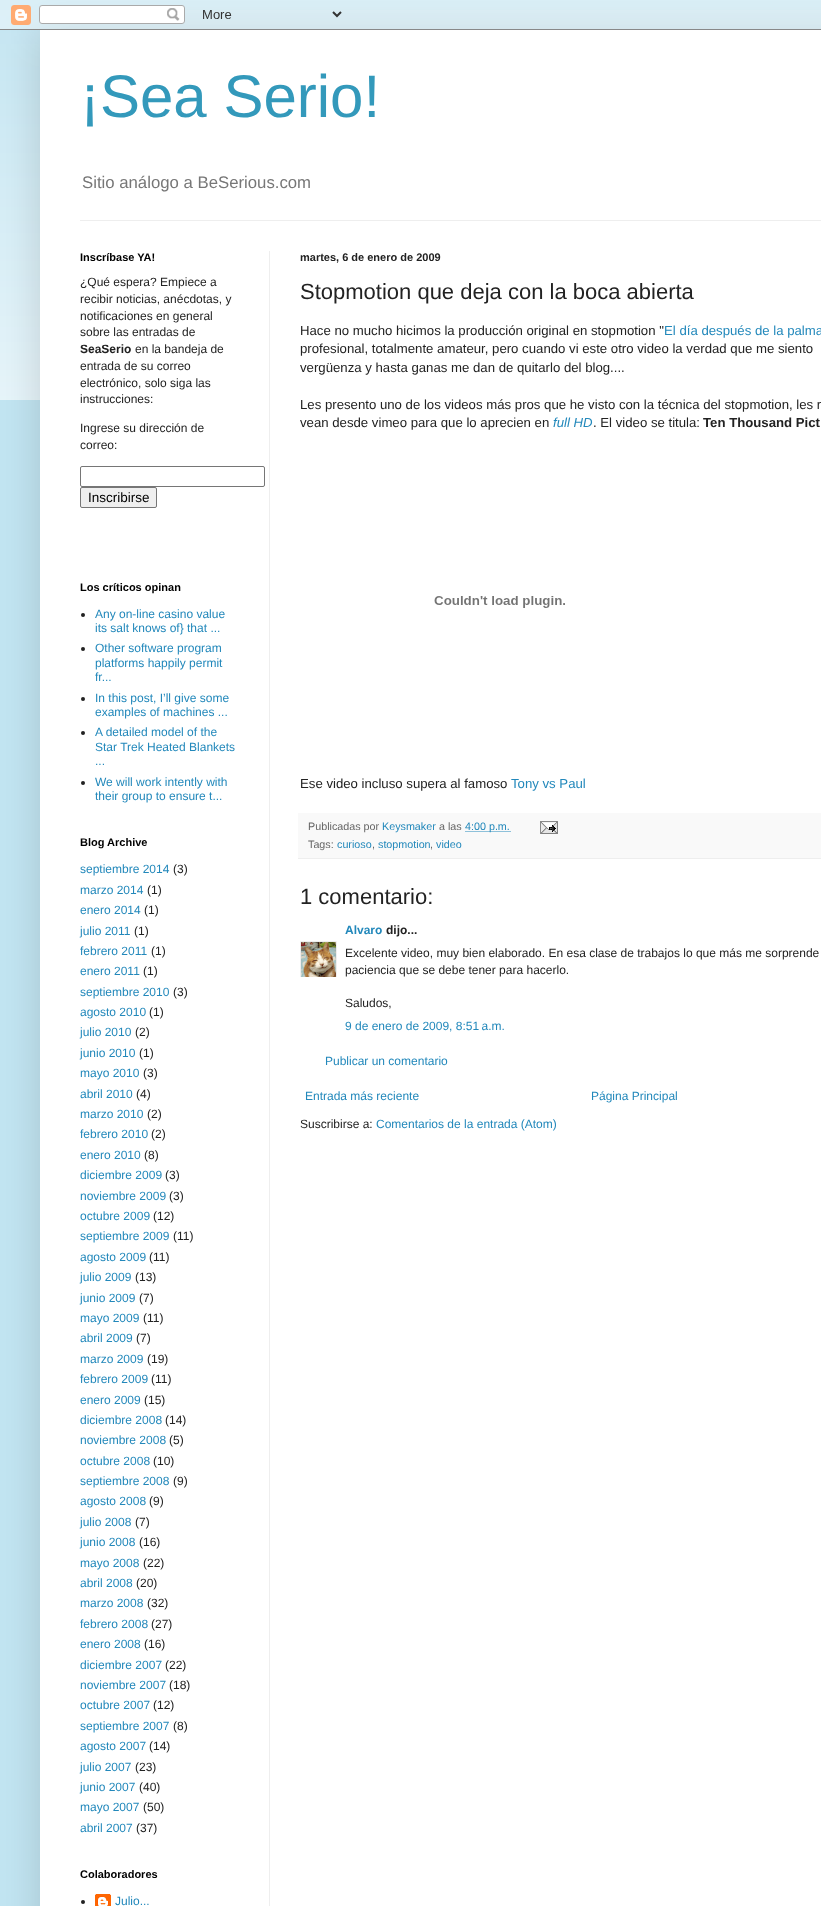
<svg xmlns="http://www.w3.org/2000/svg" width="821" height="1906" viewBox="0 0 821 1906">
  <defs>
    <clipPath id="clip1"><path d="M300 941h37v36H300z"/></clipPath>
  </defs>
  <rect width="100%" height="100%" fill="#c2e5f2"/>
  <image x="0" y="10" width="821" height="390" href="img/2.png"/>
  <path d="M40 30h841v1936H40z" fill="#00000026" filter="blur(20px)"/>
  <image x="0" y="0" width="821" height="30" href="img/1.png"/>
  <path d="M40 30h781v1876H40z" fill="#fff"/>
  <path d="M80 220h741v1H80z" fill="#eee"/>
  <path d="M269 251h1v1655H269z" fill="#eee"/>
  <rect x="80.5" y="466.5" width="184" height="20" rx="1.5" fill="none" stroke="#767676"/>
  <rect x="80.5" y="487.5" width="76" height="20" rx="1.5" fill="#efefef" stroke="#767676"/>
  <circle cx="83" cy="615" r="2" fill="#222"/>
  <circle cx="83" cy="649" r="2" fill="#222"/>
  <circle cx="83" cy="699" r="2" fill="#222"/>
  <circle cx="83" cy="733" r="2" fill="#222"/>
  <circle cx="83" cy="783" r="2" fill="#222"/>
  <circle cx="83" cy="1902" r="2" fill="#222"/>
  <image x="95" y="1894" width="16" height="12" href="img/3.png"/>
  <image x="434" y="596" width="131" height="12" href="img/4.png"/>
  <path d="M298 813h523v45H298z" fill="#f9f9f9"/>
  <path d="M298 858h523v1H298z" fill="#eee"/>
  <path d="M465.5 831.5H510.5" fill="none" stroke="#28b" stroke-dasharray="1 1"/>
  <image x="540" y="821" width="18" height="13" href="img/5.png"/>
  <g clip-path="url(#clip1)">
    <path d="M300.5 941.5h36v36H300.5z" fill="none" stroke="#eee"/>
  </g>
  <image x="301" y="942" width="35" height="35" href="img/6.png"/>
  <text x="80" y="117" font-family="Liberation Sans" font-size="60" fill="#39b">¡Sea Serio!</text>
  <text x="82" y="188" font-family="Liberation Sans" font-size="16.75" fill="#777">Sitio análogo a BeSerious.com</text>
  <text x="80" y="261" font-family="Liberation Sans" font-size="11" font-weight="bold" fill="#000">Inscríbase YA!</text>
  <g font-family="Liberation Sans" font-size="12" fill="#222">
    <text x="80" y="286">¿Qué espera? Empiece a</text>
    <text x="80" y="303">recibir noticias, anécdotas, y</text>
    <text x="80" y="320">notificaciones en general</text>
    <text x="80" y="336">sobre las entradas de</text>
  </g>
  <text x="80" y="353" font-family="Liberation Sans" font-size="12" font-weight="bold" fill="#222">SeaSerio</text>
  <g font-family="Liberation Sans" font-size="12" fill="#222">
    <text x="135" y="353">en la bandeja de</text>
    <text x="80" y="370">entrada de su correo</text>
    <text x="80" y="387">electrónico, solo siga las</text>
    <text x="80" y="403">instrucciones:</text>
    <text x="80" y="432">Ingrese su dirección de</text>
    <text x="80" y="449">correo:</text>
  </g>
  <text x="88" y="502" font-family="Liberation Sans" font-size="13.5" fill="#000">Inscribirse</text>
  <text x="80" y="591" font-family="Liberation Sans" font-size="11" font-weight="bold" fill="#000">Los críticos opinan</text>
  <g font-family="Liberation Sans" font-size="12" fill="#28b">
    <text x="95" y="618">Any on-line casino value</text>
    <text x="95" y="632">its salt knows of} that ...</text>
    <text x="95" y="652">Other software program</text>
    <text x="95" y="667">platforms happily permit</text>
    <text x="95" y="681">fr...</text>
    <text x="95" y="702">In this post, I’ll give some</text>
    <text x="95" y="716">examples of machines ...</text>
    <text x="95" y="736">A detailed model of the</text>
    <text x="95" y="751">Star Trek Heated Blankets</text>
    <text x="95" y="765">...</text>
    <text x="95" y="786">We will work intently with</text>
    <text x="95" y="800">their group to ensure t...</text>
  </g>
  <text x="80" y="846" font-family="Liberation Sans" font-size="11" font-weight="bold" fill="#000">Blog Archive</text>
  <text x="80" y="873" font-family="Liberation Sans" font-size="12" fill="#28b">septiembre 2014</text>
  <text x="173" y="873" font-family="Liberation Sans" font-size="12" fill="#222">(3)</text>
  <text x="80" y="894" font-family="Liberation Sans" font-size="12" fill="#28b">marzo 2014</text>
  <text x="147" y="894" font-family="Liberation Sans" font-size="12" fill="#222">(1)</text>
  <text x="80" y="914" font-family="Liberation Sans" font-size="12" fill="#28b">enero 2014</text>
  <text x="144" y="914" font-family="Liberation Sans" font-size="12" fill="#222">(1)</text>
  <text x="80" y="935" font-family="Liberation Sans" font-size="12" fill="#28b">julio 2011</text>
  <text x="134" y="935" font-family="Liberation Sans" font-size="12" fill="#222">(1)</text>
  <text x="80" y="955" font-family="Liberation Sans" font-size="12" fill="#28b">febrero 2011</text>
  <text x="151" y="955" font-family="Liberation Sans" font-size="12" fill="#222">(1)</text>
  <text x="80" y="975" font-family="Liberation Sans" font-size="12" fill="#28b">enero 2011</text>
  <text x="143" y="975" font-family="Liberation Sans" font-size="12" fill="#222">(1)</text>
  <text x="80" y="996" font-family="Liberation Sans" font-size="12" fill="#28b">septiembre 2010</text>
  <text x="173" y="996" font-family="Liberation Sans" font-size="12" fill="#222">(3)</text>
  <text x="80" y="1016" font-family="Liberation Sans" font-size="12" fill="#28b">agosto 2010</text>
  <text x="149" y="1016" font-family="Liberation Sans" font-size="12" fill="#222">(1)</text>
  <text x="80" y="1036" font-family="Liberation Sans" font-size="12" fill="#28b">julio 2010</text>
  <text x="135" y="1036" font-family="Liberation Sans" font-size="12" fill="#222">(2)</text>
  <text x="80" y="1057" font-family="Liberation Sans" font-size="12" fill="#28b">junio 2010</text>
  <text x="139" y="1057" font-family="Liberation Sans" font-size="12" fill="#222">(1)</text>
  <text x="80" y="1077" font-family="Liberation Sans" font-size="12" fill="#28b">mayo 2010</text>
  <text x="143" y="1077" font-family="Liberation Sans" font-size="12" fill="#222">(3)</text>
  <text x="80" y="1098" font-family="Liberation Sans" font-size="12" fill="#28b">abril 2010</text>
  <text x="136" y="1098" font-family="Liberation Sans" font-size="12" fill="#222">(4)</text>
  <text x="80" y="1118" font-family="Liberation Sans" font-size="12" fill="#28b">marzo 2010</text>
  <text x="147" y="1118" font-family="Liberation Sans" font-size="12" fill="#222">(2)</text>
  <text x="80" y="1138" font-family="Liberation Sans" font-size="12" fill="#28b">febrero 2010</text>
  <text x="151" y="1138" font-family="Liberation Sans" font-size="12" fill="#222">(2)</text>
  <text x="80" y="1159" font-family="Liberation Sans" font-size="12" fill="#28b">enero 2010</text>
  <text x="144" y="1159" font-family="Liberation Sans" font-size="12" fill="#222">(8)</text>
  <text x="80" y="1179" font-family="Liberation Sans" font-size="12" fill="#28b">diciembre 2009</text>
  <text x="165" y="1179" font-family="Liberation Sans" font-size="12" fill="#222">(3)</text>
  <text x="80" y="1200" font-family="Liberation Sans" font-size="12" fill="#28b">noviembre 2009</text>
  <text x="169" y="1200" font-family="Liberation Sans" font-size="12" fill="#222">(3)</text>
  <text x="80" y="1220" font-family="Liberation Sans" font-size="12" fill="#28b">octubre 2009</text>
  <text x="153" y="1220" font-family="Liberation Sans" font-size="12" fill="#222">(12)</text>
  <text x="80" y="1240" font-family="Liberation Sans" font-size="12" fill="#28b">septiembre 2009</text>
  <text x="173" y="1240" font-family="Liberation Sans" font-size="12" fill="#222">(11)</text>
  <text x="80" y="1261" font-family="Liberation Sans" font-size="12" fill="#28b">agosto 2009</text>
  <text x="149" y="1261" font-family="Liberation Sans" font-size="12" fill="#222">(11)</text>
  <text x="80" y="1281" font-family="Liberation Sans" font-size="12" fill="#28b">julio 2009</text>
  <text x="135" y="1281" font-family="Liberation Sans" font-size="12" fill="#222">(13)</text>
  <text x="80" y="1302" font-family="Liberation Sans" font-size="12" fill="#28b">junio 2009</text>
  <text x="139" y="1302" font-family="Liberation Sans" font-size="12" fill="#222">(7)</text>
  <text x="80" y="1322" font-family="Liberation Sans" font-size="12" fill="#28b">mayo 2009</text>
  <text x="143" y="1322" font-family="Liberation Sans" font-size="12" fill="#222">(11)</text>
  <text x="80" y="1342" font-family="Liberation Sans" font-size="12" fill="#28b">abril 2009</text>
  <text x="136" y="1342" font-family="Liberation Sans" font-size="12" fill="#222">(7)</text>
  <text x="80" y="1363" font-family="Liberation Sans" font-size="12" fill="#28b">marzo 2009</text>
  <text x="147" y="1363" font-family="Liberation Sans" font-size="12" fill="#222">(19)</text>
  <text x="80" y="1383" font-family="Liberation Sans" font-size="12" fill="#28b">febrero 2009</text>
  <text x="151" y="1383" font-family="Liberation Sans" font-size="12" fill="#222">(11)</text>
  <text x="80" y="1404" font-family="Liberation Sans" font-size="12" fill="#28b">enero 2009</text>
  <text x="144" y="1404" font-family="Liberation Sans" font-size="12" fill="#222">(15)</text>
  <text x="80" y="1424" font-family="Liberation Sans" font-size="12" fill="#28b">diciembre 2008</text>
  <text x="165" y="1424" font-family="Liberation Sans" font-size="12" fill="#222">(14)</text>
  <text x="80" y="1444" font-family="Liberation Sans" font-size="12" fill="#28b">noviembre 2008</text>
  <text x="169" y="1444" font-family="Liberation Sans" font-size="12" fill="#222">(5)</text>
  <text x="80" y="1465" font-family="Liberation Sans" font-size="12" fill="#28b">octubre 2008</text>
  <text x="153" y="1465" font-family="Liberation Sans" font-size="12" fill="#222">(10)</text>
  <text x="80" y="1485" font-family="Liberation Sans" font-size="12" fill="#28b">septiembre 2008</text>
  <text x="173" y="1485" font-family="Liberation Sans" font-size="12" fill="#222">(9)</text>
  <text x="80" y="1505" font-family="Liberation Sans" font-size="12" fill="#28b">agosto 2008</text>
  <text x="149" y="1505" font-family="Liberation Sans" font-size="12" fill="#222">(9)</text>
  <text x="80" y="1526" font-family="Liberation Sans" font-size="12" fill="#28b">julio 2008</text>
  <text x="135" y="1526" font-family="Liberation Sans" font-size="12" fill="#222">(7)</text>
  <text x="80" y="1546" font-family="Liberation Sans" font-size="12" fill="#28b">junio 2008</text>
  <text x="139" y="1546" font-family="Liberation Sans" font-size="12" fill="#222">(16)</text>
  <text x="80" y="1567" font-family="Liberation Sans" font-size="12" fill="#28b">mayo 2008</text>
  <text x="143" y="1567" font-family="Liberation Sans" font-size="12" fill="#222">(22)</text>
  <text x="80" y="1587" font-family="Liberation Sans" font-size="12" fill="#28b">abril 2008</text>
  <text x="136" y="1587" font-family="Liberation Sans" font-size="12" fill="#222">(20)</text>
  <text x="80" y="1607" font-family="Liberation Sans" font-size="12" fill="#28b">marzo 2008</text>
  <text x="147" y="1607" font-family="Liberation Sans" font-size="12" fill="#222">(32)</text>
  <text x="80" y="1628" font-family="Liberation Sans" font-size="12" fill="#28b">febrero 2008</text>
  <text x="151" y="1628" font-family="Liberation Sans" font-size="12" fill="#222">(27)</text>
  <text x="80" y="1648" font-family="Liberation Sans" font-size="12" fill="#28b">enero 2008</text>
  <text x="144" y="1648" font-family="Liberation Sans" font-size="12" fill="#222">(16)</text>
  <text x="80" y="1669" font-family="Liberation Sans" font-size="12" fill="#28b">diciembre 2007</text>
  <text x="165" y="1669" font-family="Liberation Sans" font-size="12" fill="#222">(22)</text>
  <text x="80" y="1689" font-family="Liberation Sans" font-size="12" fill="#28b">noviembre 2007</text>
  <text x="169" y="1689" font-family="Liberation Sans" font-size="12" fill="#222">(18)</text>
  <text x="80" y="1709" font-family="Liberation Sans" font-size="12" fill="#28b">octubre 2007</text>
  <text x="153" y="1709" font-family="Liberation Sans" font-size="12" fill="#222">(12)</text>
  <text x="80" y="1730" font-family="Liberation Sans" font-size="12" fill="#28b">septiembre 2007</text>
  <text x="173" y="1730" font-family="Liberation Sans" font-size="12" fill="#222">(8)</text>
  <text x="80" y="1750" font-family="Liberation Sans" font-size="12" fill="#28b">agosto 2007</text>
  <text x="149" y="1750" font-family="Liberation Sans" font-size="12" fill="#222">(14)</text>
  <text x="80" y="1771" font-family="Liberation Sans" font-size="12" fill="#28b">julio 2007</text>
  <text x="135" y="1771" font-family="Liberation Sans" font-size="12" fill="#222">(23)</text>
  <text x="80" y="1791" font-family="Liberation Sans" font-size="12" fill="#28b">junio 2007</text>
  <text x="139" y="1791" font-family="Liberation Sans" font-size="12" fill="#222">(40)</text>
  <text x="80" y="1811" font-family="Liberation Sans" font-size="12" fill="#28b">mayo 2007</text>
  <text x="143" y="1811" font-family="Liberation Sans" font-size="12" fill="#222">(50)</text>
  <text x="80" y="1832" font-family="Liberation Sans" font-size="12" fill="#28b">abril 2007</text>
  <text x="136" y="1832" font-family="Liberation Sans" font-size="12" fill="#222">(37)</text>
  <text x="80" y="1878" font-family="Liberation Sans" font-size="11" font-weight="bold" fill="#000">Colaboradores</text>
  <text x="115" y="1905" font-family="Liberation Sans" font-size="12" fill="#28b">Julio...</text>
  <text x="300" y="261" font-family="Liberation Sans" font-size="11" font-weight="bold" fill="#222">martes, 6 de enero de 2009</text>
  <text x="300" y="299" font-family="Liberation Sans" font-size="22" fill="#222">Stopmotion que deja con la boca abierta</text>
  <text x="300" y="335" font-family="Liberation Sans" font-size="13.2" fill="#222">Hace no mucho hicimos la producción original en stopmotion "</text>
  <text x="664" y="335" font-family="Liberation Sans" font-size="13.2" fill="#28b">El día después de la palma</text>
  <g font-family="Liberation Sans" font-size="13.2" fill="#222">
    <text x="300" y="353">profesional, totalmente amateur, pero cuando vi este otro video la verdad que me siento</text>
    <text x="300" y="372">vergüenza y hasta ganas me dan de quitarlo del blog....</text>
    <text x="300" y="409">Les presento uno de los videos más pros que he visto con la técnica del stopmotion, les r</text>
    <text x="300" y="427">vean desde vimeo para que lo aprecien en</text>
  </g>
  <text x="553" y="427" font-family="Liberation Sans" font-size="13.2" font-style="italic" fill="#28b">full HD</text>
  <text x="593" y="427" font-family="Liberation Sans" font-size="13.2" fill="#222">. El video se titula:</text>
  <text x="703" y="427" font-family="Liberation Sans" font-size="13.2" font-weight="bold" fill="#222">Ten Thousand Pict</text>
  <text x="300" y="788" font-family="Liberation Sans" font-size="13.2" fill="#222">Ese video incluso supera al famoso</text>
  <text x="511" y="788" font-family="Liberation Sans" font-size="13.2" fill="#28b">Tony vs Paul</text>
  <text x="308" y="830" font-family="Liberation Sans" font-size="10.75" fill="#666">Publicadas por</text>
  <text x="382" y="830" font-family="Liberation Sans" font-size="10.75" fill="#28b">Keysmaker</text>
  <text x="439" y="830" font-family="Liberation Sans" font-size="10.75" fill="#666">a las</text>
  <text x="465" y="830" font-family="Liberation Sans" font-size="10.75" fill="#28b">4:00 p.m.</text>
  <text x="308" y="848" font-family="Liberation Sans" font-size="10.75" fill="#666">Tags:</text>
  <text x="337" y="848" font-family="Liberation Sans" font-size="10.75" fill="#28b">curioso</text>
  <text x="372" y="848" font-family="Liberation Sans" font-size="10.75" fill="#666">,</text>
  <text x="378" y="848" font-family="Liberation Sans" font-size="10.75" fill="#28b">stopmotion</text>
  <text x="430" y="848" font-family="Liberation Sans" font-size="10.75" fill="#666">,</text>
  <text x="436" y="848" font-family="Liberation Sans" font-size="10.75" fill="#28b">video</text>
  <text x="300" y="904" font-family="Liberation Sans" font-size="22" fill="#222">1 comentario:</text>
  <text x="345" y="934" font-family="Liberation Sans" font-size="12" font-weight="bold" fill="#28b">Alvaro</text>
  <text x="386" y="934" font-family="Liberation Sans" font-size="12" font-weight="bold" fill="#222">dijo...</text>
  <g font-family="Liberation Sans" font-size="12" fill="#222">
    <text x="345" y="957">Excelente video, muy bien elaborado. En esa clase de trabajos lo que más me sorprende</text>
    <text x="345" y="974">paciencia que se debe tener para hacerlo.</text>
    <text x="345" y="1007">Saludos,</text>
  </g>
  <g font-family="Liberation Sans" font-size="12" fill="#28b">
    <text x="345" y="1030">9 de enero de 2009, 8:51 a.m.</text>
    <text x="325" y="1065">Publicar un comentario</text>
    <text x="305" y="1100">Entrada más reciente</text>
    <text x="591" y="1100">Página Principal</text>
  </g>
  <text x="300" y="1128" font-family="Liberation Sans" font-size="12" fill="#222">Suscribirse a:</text>
  <text x="376" y="1128" font-family="Liberation Sans" font-size="12" fill="#28b">Comentarios de la entrada (Atom)</text>
</svg>
